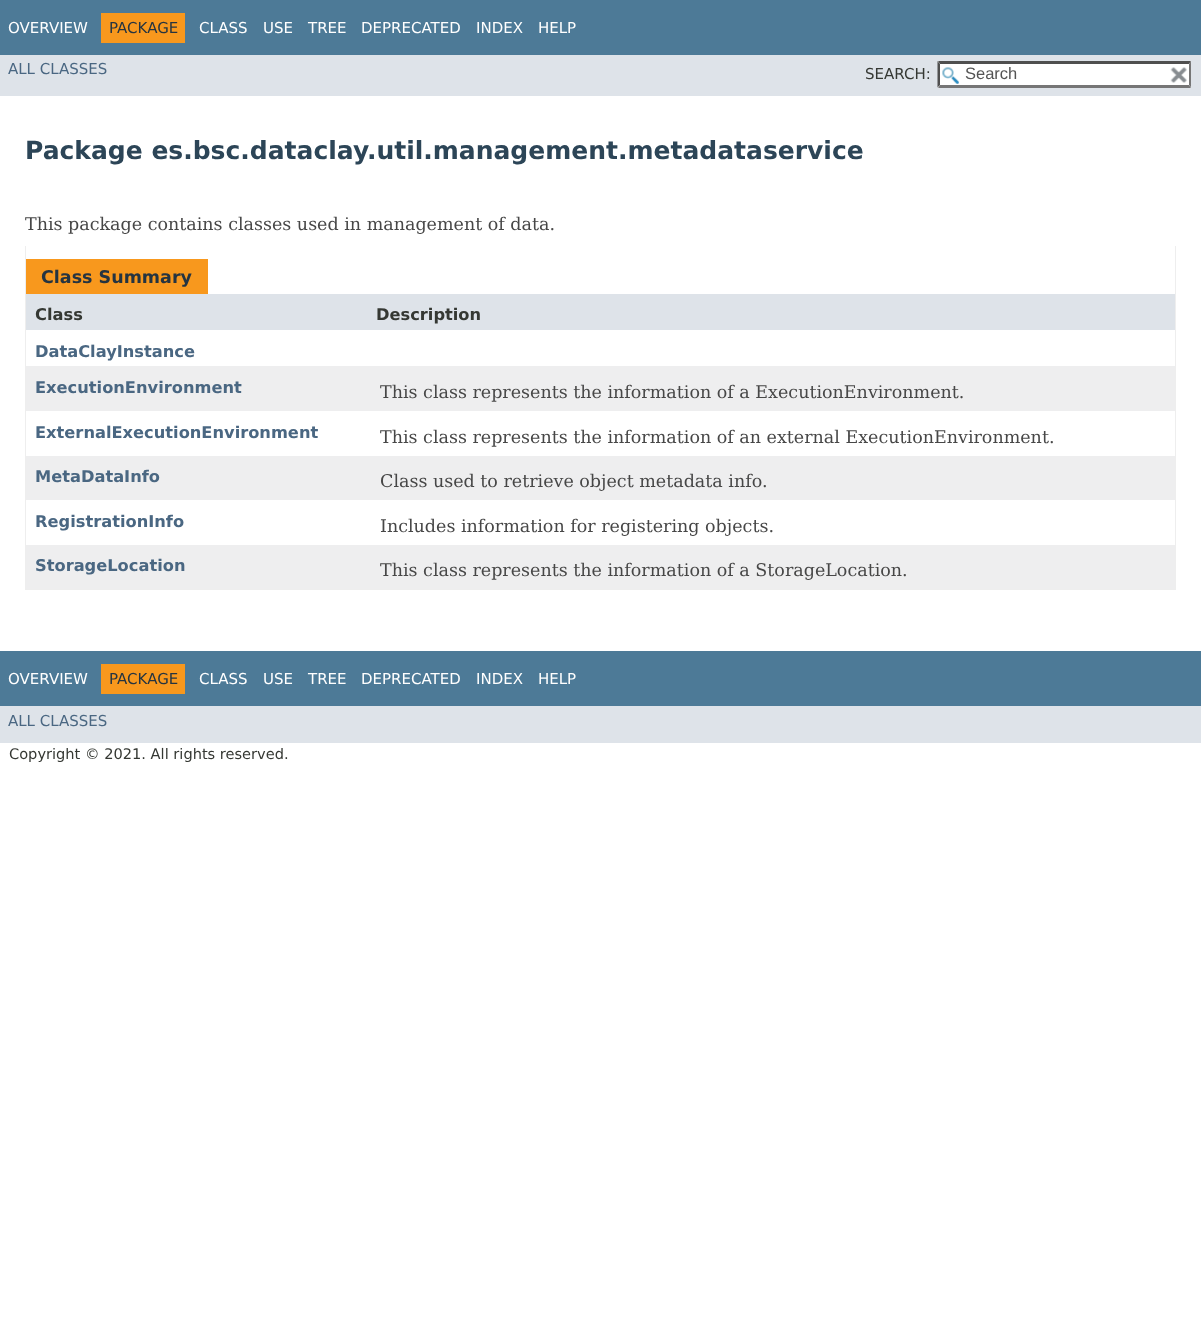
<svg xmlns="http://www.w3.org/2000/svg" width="1201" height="1319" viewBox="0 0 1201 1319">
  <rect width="100%" height="100%" fill="#fff"/>
  <path d="M0 0h1201v55H0z" fill="#4d7a97"/>
  <path d="M101 13h84v30H101z" fill="#f8981d"/>
  <path d="M0 55h1201v41H0z" fill="#dee3e9"/>
  <path d="M938 61h253v27H938z" fill="#fff"/>
  <image x="942" y="67" width="17" height="17" href="img/1.png"/>
  <path d="M938 61H1191L1189 64H940Z" fill="#4f4f4f"/>
  <path d="M1191 61V87.5L1189 85V64Z" fill="#767676"/>
  <path d="M1191 88H938L940 85H1189Z" fill="#767676"/>
  <path d="M937.5 87.5V61L940 64V85Z" fill="#4f4f4f"/>
  <image x="1170" y="67" width="17" height="16" href="img/2.png"/>
  <path d="M1175 246h1v344H1175z" fill="#eee"/>
  <path d="M25 589h1151v1H25z" fill="#eee"/>
  <path d="M25 246h1v344H25z" fill="#eee"/>
  <path d="M26 259h182v35H26z" fill="#f8981d"/>
  <path d="M26 294h1149v36H26z" fill="#dee3e9"/>
  <path d="M26 366h1149v45H26z" fill="#eeeeef"/>
  <path d="M26 456h1149v44H26z" fill="#eeeeef"/>
  <path d="M26 545h1149v44H26z" fill="#eeeeef"/>
  <path d="M0 651h1201v55H0z" fill="#4d7a97"/>
  <path d="M101 664h84v30H101z" fill="#f8981d"/>
  <path d="M0 706h1201v37H0z" fill="#dee3e9"/>
  <text x="8" y="33" font-family="DejaVu Sans" font-size="15" fill="#fff">OVERVIEW</text>
  <text x="109" y="33" font-family="DejaVu Sans" font-size="15" fill="#253441">PACKAGE</text>
  <g font-family="DejaVu Sans" font-size="15" fill="#fff">
    <text x="199" y="33">CLASS</text>
    <text x="263" y="33">USE</text>
    <text x="308" y="33">TREE</text>
    <text x="361" y="33">DEPRECATED</text>
    <text x="476" y="33">INDEX</text>
    <text x="538" y="33">HELP</text>
  </g>
  <text x="8" y="74" font-family="DejaVu Sans" font-size="15" fill="#4a6782">ALL CLASSES</text>
  <text x="865" y="79" font-family="DejaVu Sans" font-size="15" fill="#353833">SEARCH:</text>
  <text x="965" y="79" font-family="Liberation Sans" font-size="16.5" fill="#545454">Search</text>
  <text x="25" y="159" font-family="DejaVu Sans" font-size="25" font-weight="bold" fill="#2c4557">Package es.bsc.dataclay.util.management.metadataservice</text>
  <text x="25" y="230" font-family="DejaVu Serif" font-size="17.5" fill="#474747">This package contains classes used in management of data.</text>
  <text x="41" y="283" font-family="DejaVu Sans" font-size="17.5" font-weight="bold" fill="#253441">Class Summary</text>
  <g font-family="DejaVu Sans" font-size="16.25" font-weight="bold" fill="#353833">
    <text x="35" y="320">Class</text>
    <text x="376" y="320">Description</text>
  </g>
  <g font-family="DejaVu Sans" font-size="16.25" font-weight="bold" fill="#4a6782">
    <text x="35" y="357">DataClayInstance</text>
    <text x="35" y="393">ExecutionEnvironment</text>
  </g>
  <text x="380" y="398" font-family="DejaVu Serif" font-size="17.5" fill="#474747">This class represents the information of a ExecutionEnvironment.</text>
  <text x="35" y="438" font-family="DejaVu Sans" font-size="16.25" font-weight="bold" fill="#4a6782">ExternalExecutionEnvironment</text>
  <text x="380" y="443" font-family="DejaVu Serif" font-size="17.5" fill="#474747">This class represents the information of an external ExecutionEnvironment.</text>
  <text x="35" y="482" font-family="DejaVu Sans" font-size="16.25" font-weight="bold" fill="#4a6782">MetaDataInfo</text>
  <text x="380" y="487" font-family="DejaVu Serif" font-size="17.5" fill="#474747">Class used to retrieve object metadata info.</text>
  <text x="35" y="527" font-family="DejaVu Sans" font-size="16.25" font-weight="bold" fill="#4a6782">RegistrationInfo</text>
  <text x="380" y="532" font-family="DejaVu Serif" font-size="17.5" fill="#474747">Includes information for registering objects.</text>
  <text x="35" y="571" font-family="DejaVu Sans" font-size="16.25" font-weight="bold" fill="#4a6782">StorageLocation</text>
  <text x="380" y="576" font-family="DejaVu Serif" font-size="17.5" fill="#474747">This class represents the information of a StorageLocation.</text>
  <text x="8" y="684" font-family="DejaVu Sans" font-size="15" fill="#fff">OVERVIEW</text>
  <text x="109" y="684" font-family="DejaVu Sans" font-size="15" fill="#253441">PACKAGE</text>
  <g font-family="DejaVu Sans" font-size="15" fill="#fff">
    <text x="199" y="684">CLASS</text>
    <text x="263" y="684">USE</text>
    <text x="308" y="684">TREE</text>
    <text x="361" y="684">DEPRECATED</text>
    <text x="476" y="684">INDEX</text>
    <text x="538" y="684">HELP</text>
  </g>
  <text x="8" y="726" font-family="DejaVu Sans" font-size="15" fill="#4a6782">ALL CLASSES</text>
  <text x="9" y="759" font-family="DejaVu Sans" font-size="14.6" fill="#353833">Copyright © 2021. All rights reserved.</text>
</svg>
